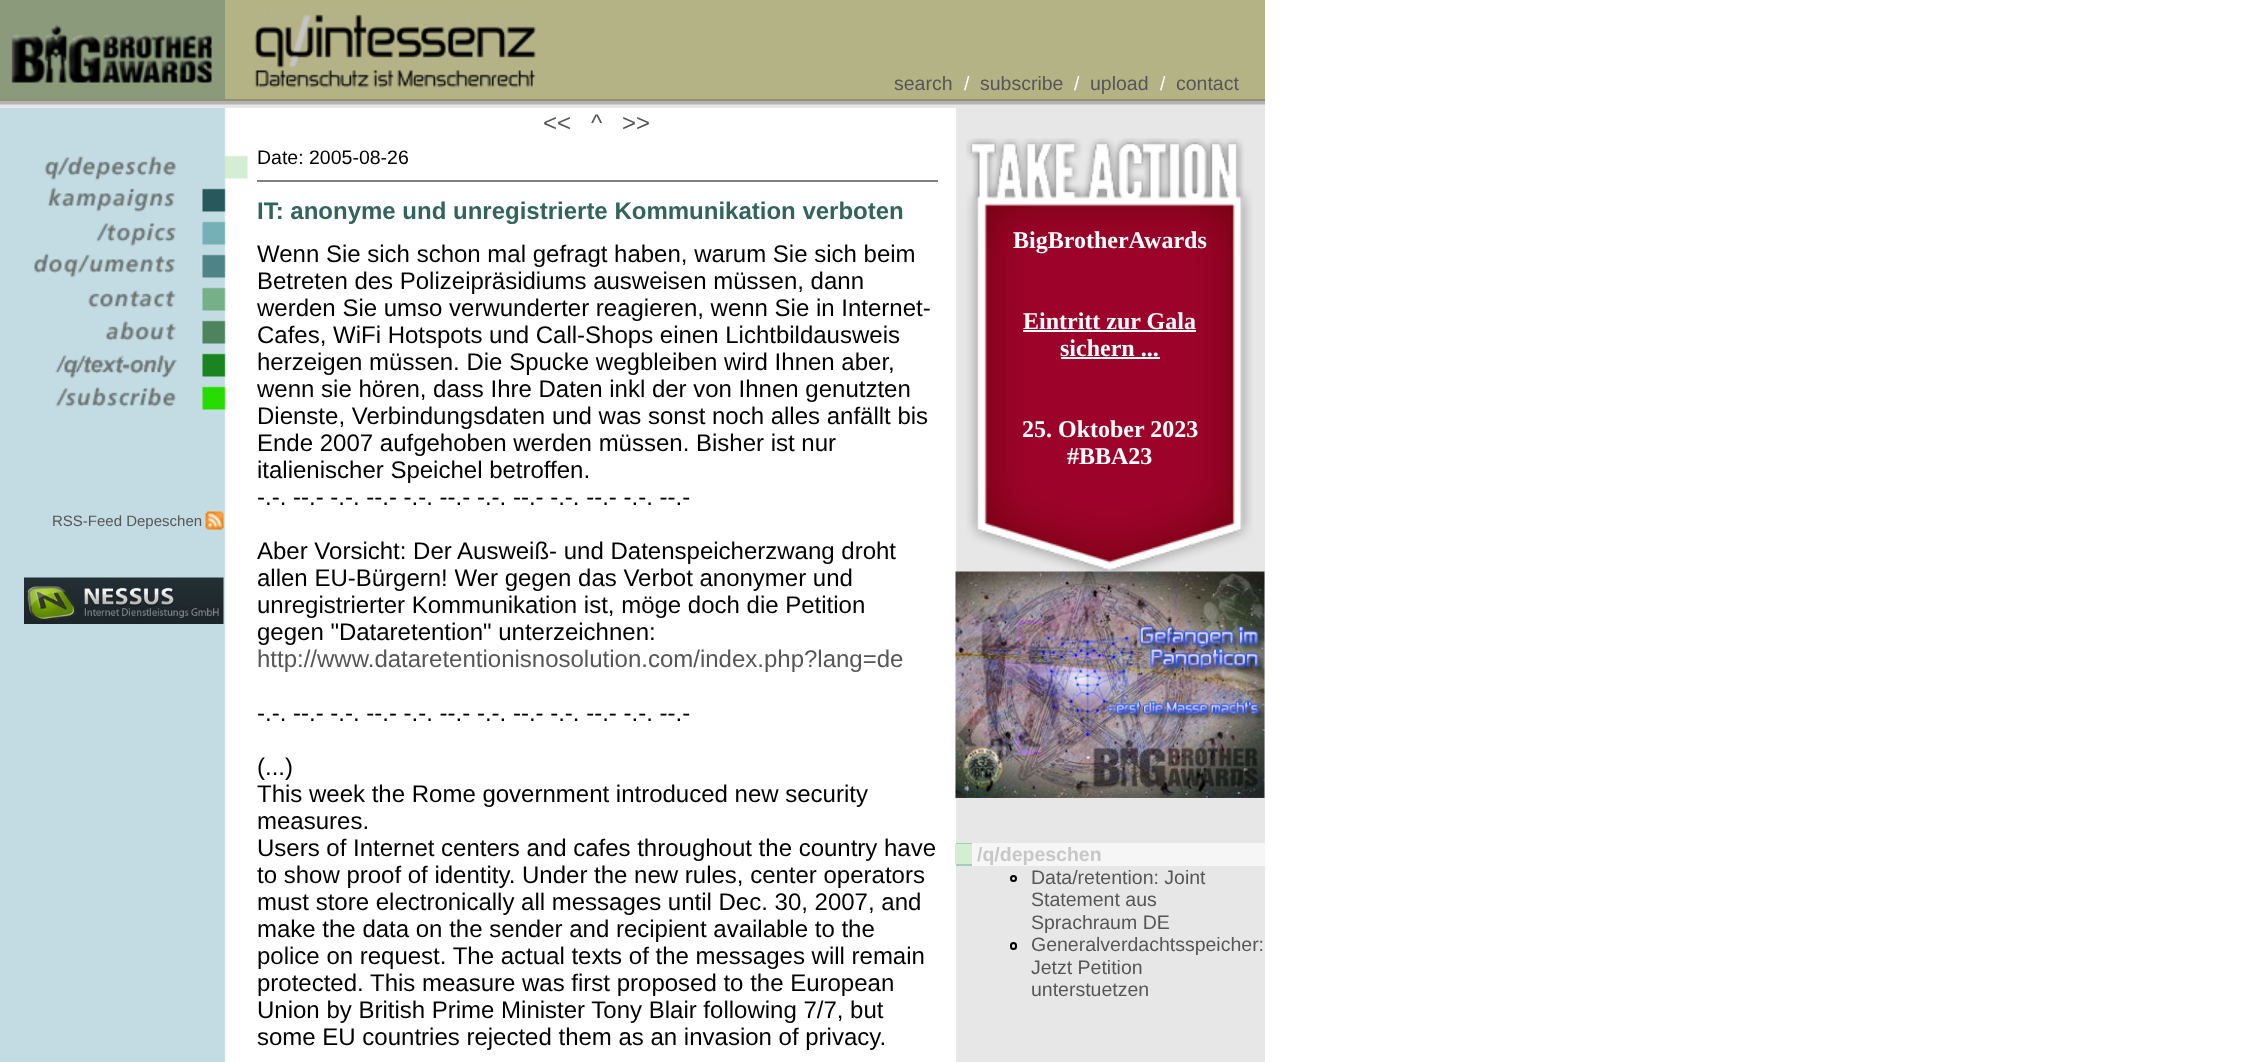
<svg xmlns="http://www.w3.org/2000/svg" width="2251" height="1062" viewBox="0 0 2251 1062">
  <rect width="100%" height="100%" fill="#fff"/>
  <path d="M0 0h225v99H0z" fill="#8a9a7a"/>
  <path d="M225 0h1040v5H225z" fill="#b3b386"/>
  <image x="11" y="24" width="201" height="59" href="img/1.png"/>
  <path d="M225 5h1040v94H225z" fill="#b3b386"/>
  <image x="252" y="9" width="285" height="84" href="img/2.png"/>
  <path d="M0 99h1265v2H0z" fill="#91916f"/>
  <path d="M0 101h1265v3H0z" fill="#b3b3b3"/>
  <path d="M0 104h1265v1H0z" fill="#cdcdcd"/>
  <path d="M0 105h1265v3H0z" fill="#e7e7e7"/>
  <path d="M0 108h225v2H0z" fill="#c3dce3"/>
  <path d="M956 108h309v954H956z" fill="#e7e7e7"/>
  <image x="0" y="109" width="226" height="953" href="img/3.png"/>
  <image x="44" y="155" width="204" height="26" href="img/4.png"/>
  <image x="47" y="187" width="179" height="25" href="img/5.png"/>
  <image x="96" y="221" width="130" height="26" href="img/6.png"/>
  <image x="34" y="253" width="192" height="25" href="img/7.png"/>
  <image x="87" y="287" width="139" height="24" href="img/8.png"/>
  <image x="106" y="320" width="120" height="24" href="img/9.png"/>
  <image x="55" y="353" width="171" height="26" href="img/10.png"/>
  <image x="55" y="386" width="171" height="24" href="img/11.png"/>
  <image x="205" y="511" width="19" height="19" href="img/12.png"/>
  <image x="24" y="577" width="200" height="47" href="img/13.png"/>
  <path d="M257 180h681v2H257z" fill="#808080"/>
  <image x="955" y="571" width="310" height="227" href="img/15.png"/>
  <image x="966" y="138" width="286" height="434" href="img/14.png"/>
  <path d="M1023 330h173v2H1023z" fill="#fff"/>
  <path d="M1061 357h99v2H1061z" fill="#fff"/>
  <path d="M956 843h16v23H956z" fill="#a1cdbd"/>
  <path d="M955 844h17v20H955z" fill="#d3eed3"/>
  <path d="M972 843h293v23H972z" fill="#f6f6f6"/>
  <circle cx="1013.5" cy="878.5" r="2.5" fill="none" stroke="#000" stroke-width="2"/>
  <rect x="1011" y="943" width="5" height="6" rx="2.5" fill="none" stroke="#000" stroke-width="2"/>
  <text x="894" y="90" font-family="Liberation Sans" font-size="19.5" fill="#565656">search</text>
  <text x="964" y="90" font-family="Liberation Sans" font-size="19.5" fill="#fff">/</text>
  <text x="980" y="90" font-family="Liberation Sans" font-size="19.5" fill="#565656">subscribe</text>
  <text x="1074" y="90" font-family="Liberation Sans" font-size="19.5" fill="#fff">/</text>
  <text x="1090" y="90" font-family="Liberation Sans" font-size="19.5" fill="#565656">upload</text>
  <text x="1160" y="90" font-family="Liberation Sans" font-size="19.5" fill="#fff">/</text>
  <text x="1176" y="90" font-family="Liberation Sans" font-size="19.5" fill="#565656">contact</text>
  <text x="52" y="526" font-family="Liberation Sans" font-size="15" fill="#565656">RSS-Feed Depeschen</text>
  <g font-family="Liberation Sans" font-size="24" fill="#565656">
    <text x="543" y="131">&lt;&lt;</text>
    <text x="591" y="131">^</text>
    <text x="622" y="131">&gt;&gt;</text>
  </g>
  <text x="257" y="164" font-family="Liberation Sans" font-size="19.5" fill="#000">Date: 2005-08-26</text>
  <text x="257" y="219" font-family="Liberation Sans" font-size="24" font-weight="bold" fill="#31645d">IT: anonyme und unregistrierte Kommunikation verboten</text>
  <g font-family="Liberation Sans" font-size="24" fill="#000">
    <text x="257" y="262">Wenn Sie sich schon mal gefragt haben, warum Sie sich beim</text>
    <text x="257" y="289">Betreten des Polizeipräsidiums ausweisen müssen, dann</text>
    <text x="257" y="316">werden Sie umso verwunderter reagieren, wenn Sie in Internet-</text>
    <text x="257" y="343">Cafes, WiFi Hotspots und Call-Shops einen Lichtbildausweis</text>
    <text x="257" y="370">herzeigen müssen. Die Spucke wegbleiben wird Ihnen aber,</text>
    <text x="257" y="397">wenn sie hören, dass Ihre Daten inkl der von Ihnen genutzten</text>
    <text x="257" y="424">Dienste, Verbindungsdaten und was sonst noch alles anfällt bis</text>
    <text x="257" y="451">Ende 2007 aufgehoben werden müssen. Bisher ist nur</text>
    <text x="257" y="478">italienischer Speichel betroffen.</text>
    <text x="257" y="505">-.-. --.- -.-. --.- -.-. --.- -.-. --.- -.-. --.- -.-. --.-</text>
    <text x="257" y="559">Aber Vorsicht: Der Ausweiß- und Datenspeicherzwang droht</text>
    <text x="257" y="586">allen EU-Bürgern! Wer gegen das Verbot anonymer und</text>
    <text x="257" y="613">unregistrierter Kommunikation ist, möge doch die Petition</text>
    <text x="257" y="640">gegen "Dataretention" unterzeichnen:</text>
  </g>
  <text x="257" y="667" font-family="Liberation Sans" font-size="24" fill="#565656">http://www.dataretentionisnosolution.com/index.php?lang=de</text>
  <g font-family="Liberation Sans" font-size="24" fill="#000">
    <text x="257" y="721">-.-. --.- -.-. --.- -.-. --.- -.-. --.- -.-. --.- -.-. --.-</text>
    <text x="257" y="775">(...)</text>
    <text x="257" y="802">This week the Rome government introduced new security</text>
    <text x="257" y="829">measures.</text>
    <text x="257" y="856">Users of Internet centers and cafes throughout the country have</text>
    <text x="257" y="883">to show proof of identity. Under the new rules, center operators</text>
    <text x="257" y="910">must store electronically all messages until Dec. 30, 2007, and</text>
    <text x="257" y="937">make the data on the sender and recipient available to the</text>
    <text x="257" y="964">police on request. The actual texts of the messages will remain</text>
    <text x="257" y="991">protected. This measure was first proposed to the European</text>
    <text x="257" y="1018">Union by British Prime Minister Tony Blair following 7/7, but</text>
    <text x="257" y="1045">some EU countries rejected them as an invasion of privacy.</text>
  </g>
  <g font-family="Liberation Serif" font-size="24" font-weight="bold" fill="#fff">
    <text x="1013" y="248">BigBrotherAwards</text>
    <text x="1023" y="329">Eintritt zur Gala</text>
    <text x="1060" y="356">sichern ...</text>
    <text x="1022" y="437">25. Oktober 2023</text>
    <text x="1067" y="464">#BBA23</text>
  </g>
  <text x="977" y="861" font-family="Liberation Sans" font-size="19.5" font-weight="bold" fill="#c7c7c7">/q/depeschen</text>
  <g font-family="Liberation Sans" font-size="19.5" fill="#565656">
    <text x="1031" y="884">Data/retention: Joint</text>
    <text x="1031" y="906">Statement aus</text>
    <text x="1031" y="929">Sprachraum DE</text>
    <text x="1031" y="951">Generalverdachtsspeicher:</text>
    <text x="1031" y="974">Jetzt Petition</text>
    <text x="1031" y="996">unterstuetzen</text>
  </g>
</svg>
